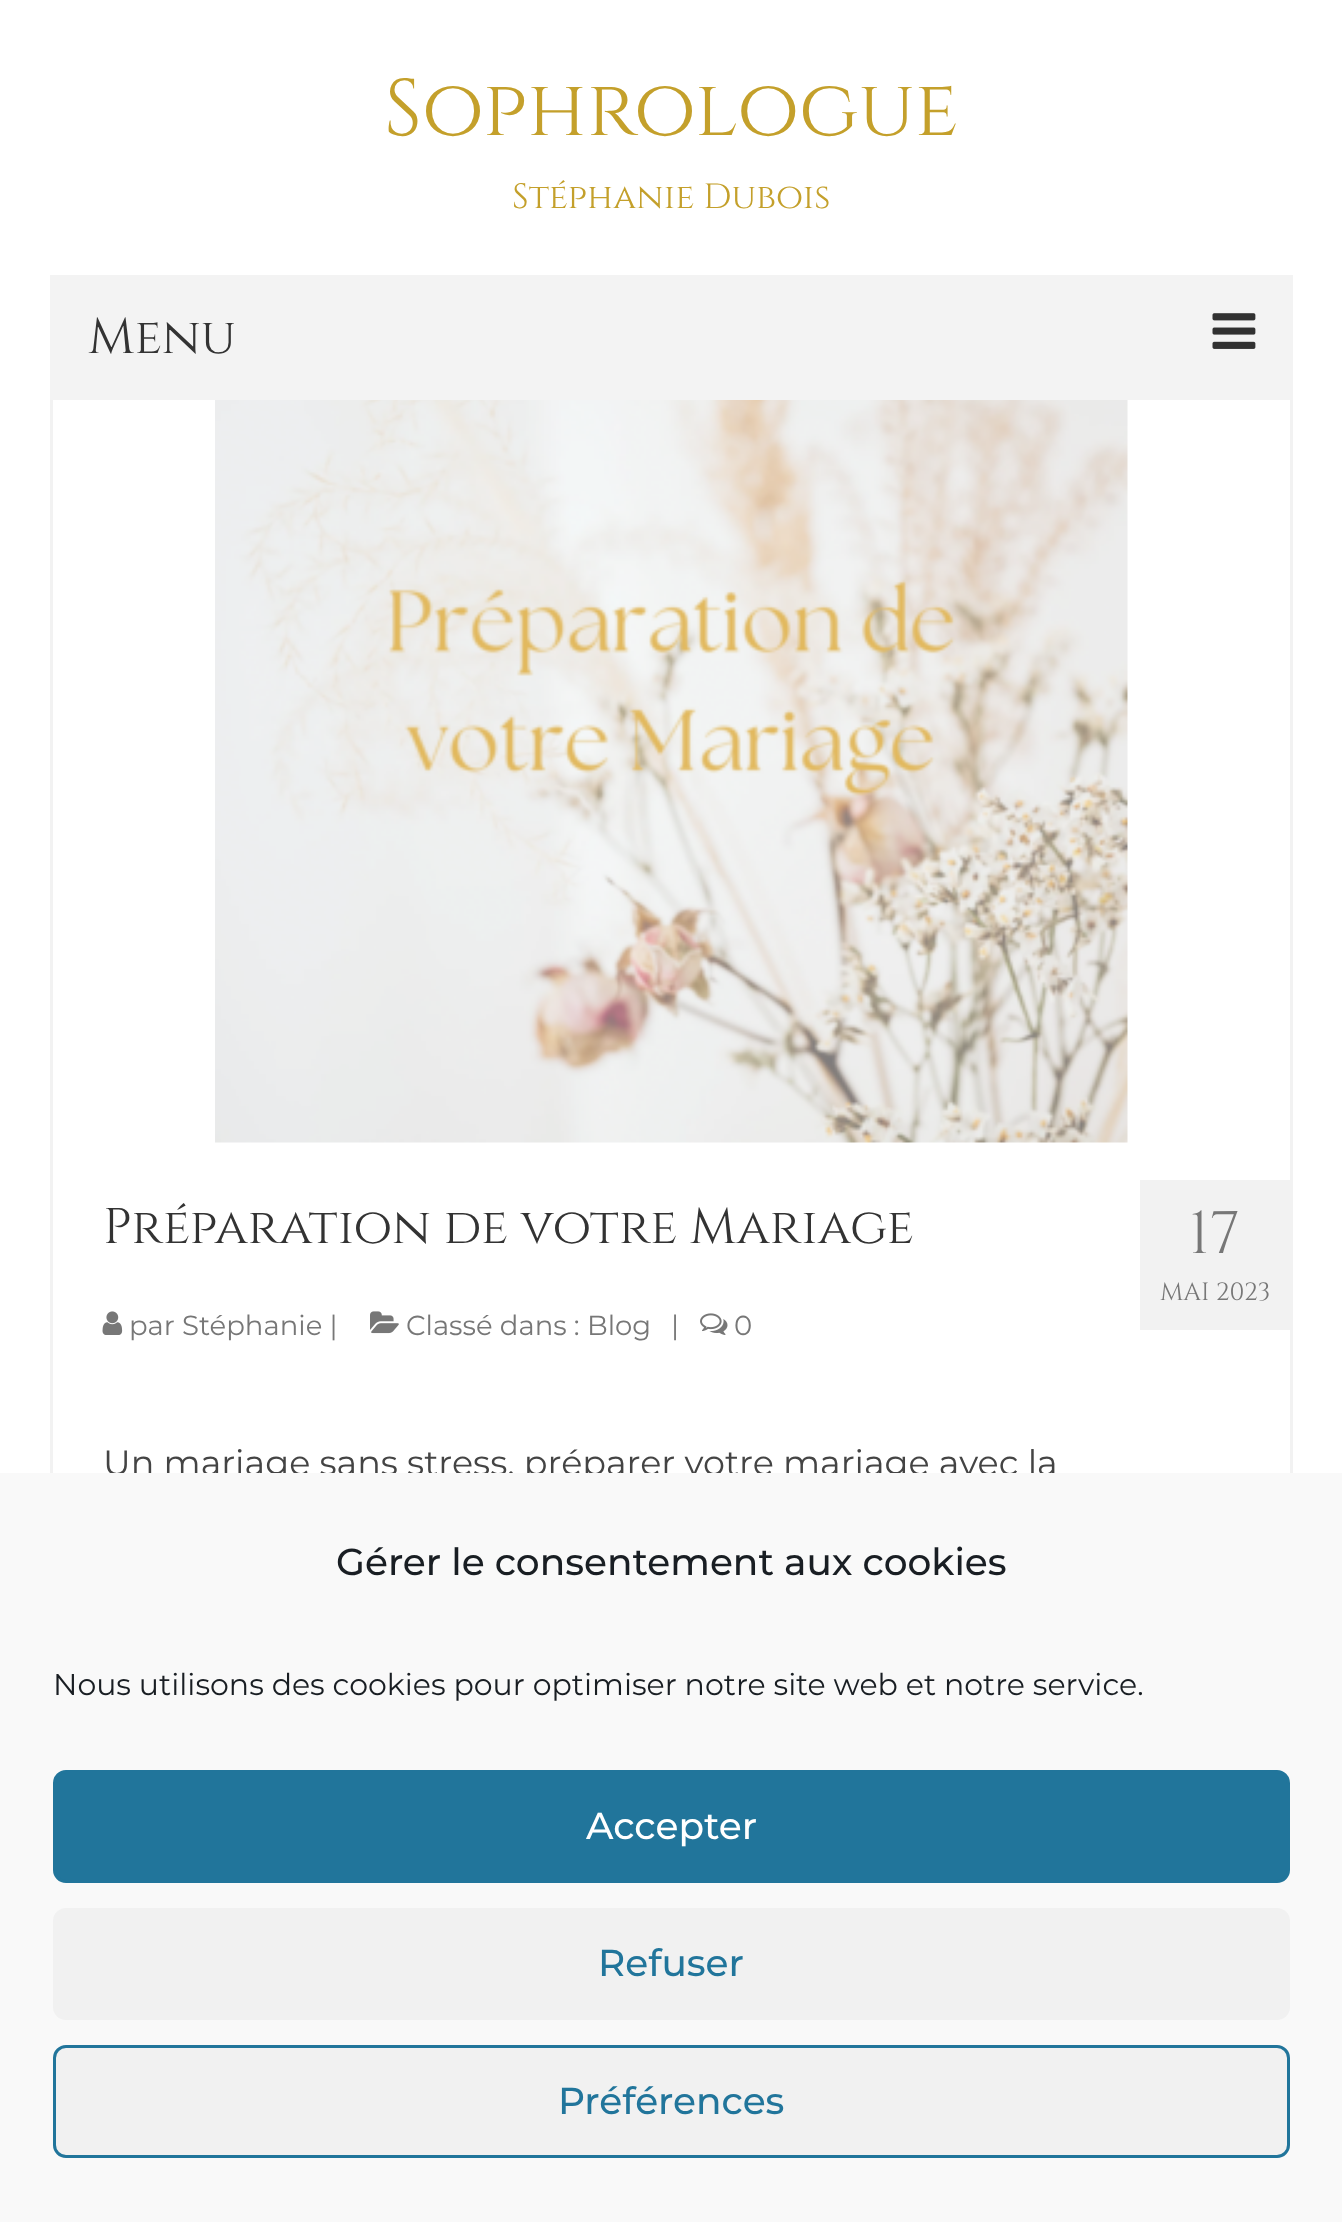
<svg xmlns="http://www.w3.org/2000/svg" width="1342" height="2222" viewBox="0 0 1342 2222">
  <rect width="100%" height="100%" fill="#fff"/>
  <path d="M51.5 229.5h1240v1902H51.5z" fill="none" stroke="#f2f2f2" stroke-width="3"/>
  <path d="M50 228h1243v172H50z" fill="#fff"/>
  <path d="M50 275h1243v125H50z" fill="#f3f3f3"/>
  <image x="1212" y="313" width="44" height="36" href="img/1.png"/>
  <image x="215" y="400" width="913" height="743" href="img/2.png"/>
  <image x="102" y="1311" width="21" height="24" href="img/3.png"/>
  <image x="370" y="1311" width="29" height="23" href="img/4.png"/>
  <image x="700" y="1313" width="28" height="22" href="img/5.png"/>
  <path d="M1140 1180h150v150H1140z" fill="#f2f2f2"/>
  <text x="384" y="135" font-family="Cinzel" font-size="80" fill="#c4a02b">Sophrologue</text>
  <text x="512" y="208" font-family="Cinzel" font-size="35" fill="#c4a02b">Stéphanie Dubois</text>
  <g font-family="Cinzel" font-size="50" fill="#333">
    <text x="88" y="353">Menu</text>
    <text x="103" y="1243">Préparation de votre Mariage</text>
  </g>
  <g font-family="Montserrat" font-size="27.5" fill="#777">
    <text x="129" y="1335">par Stéphanie |</text>
    <text x="406" y="1335">Classé dans : Blog</text>
    <text x="671" y="1335">|</text>
    <text x="734" y="1335">0</text>
  </g>
  <text x="1189" y="1253" font-family="Cinzel" font-size="60" fill="#777">17</text>
  <text x="1160" y="1300" font-family="Cinzel" font-size="25" fill="#777">MAI 2023</text>
  <text x="103" y="1475" font-family="Montserrat" font-size="35" fill="#444">Un mariage sans stress, préparer votre mariage avec la</text>
  <path d="M0 1473h1342v749H0z" fill="#f9f9f9"/>
  <text x="336" y="1575" font-family="Montserrat" font-size="37.5" font-weight="500" fill="#191e23">Gérer le consentement aux cookies</text>
  <text x="53" y="1695" font-family="Montserrat" font-size="30" fill="#191e23">Nous utilisons des cookies pour optimiser notre site web et notre service.</text>
  <rect x="54.5" y="1771.5" width="1234" height="110" rx="11.5" fill="#21759b" stroke="#21759b" stroke-width="3"/>
  <text x="586" y="1839" font-family="Montserrat" font-size="37.5" font-weight="500" fill="#fff">Accepter</text>
  <rect x="53" y="1908" width="1237" height="112" rx="13" fill="#f1f1f1"/>
  <text x="598" y="1976" font-family="Montserrat" font-size="37.5" font-weight="500" fill="#21759b">Refuser</text>
  <rect x="54.5" y="2046.5" width="1234" height="110" rx="11.5" fill="#f1f1f1" stroke="#21759b" stroke-width="3"/>
  <text x="558" y="2114" font-family="Montserrat" font-size="37.5" font-weight="500" fill="#21759b">Préférences</text>
</svg>
